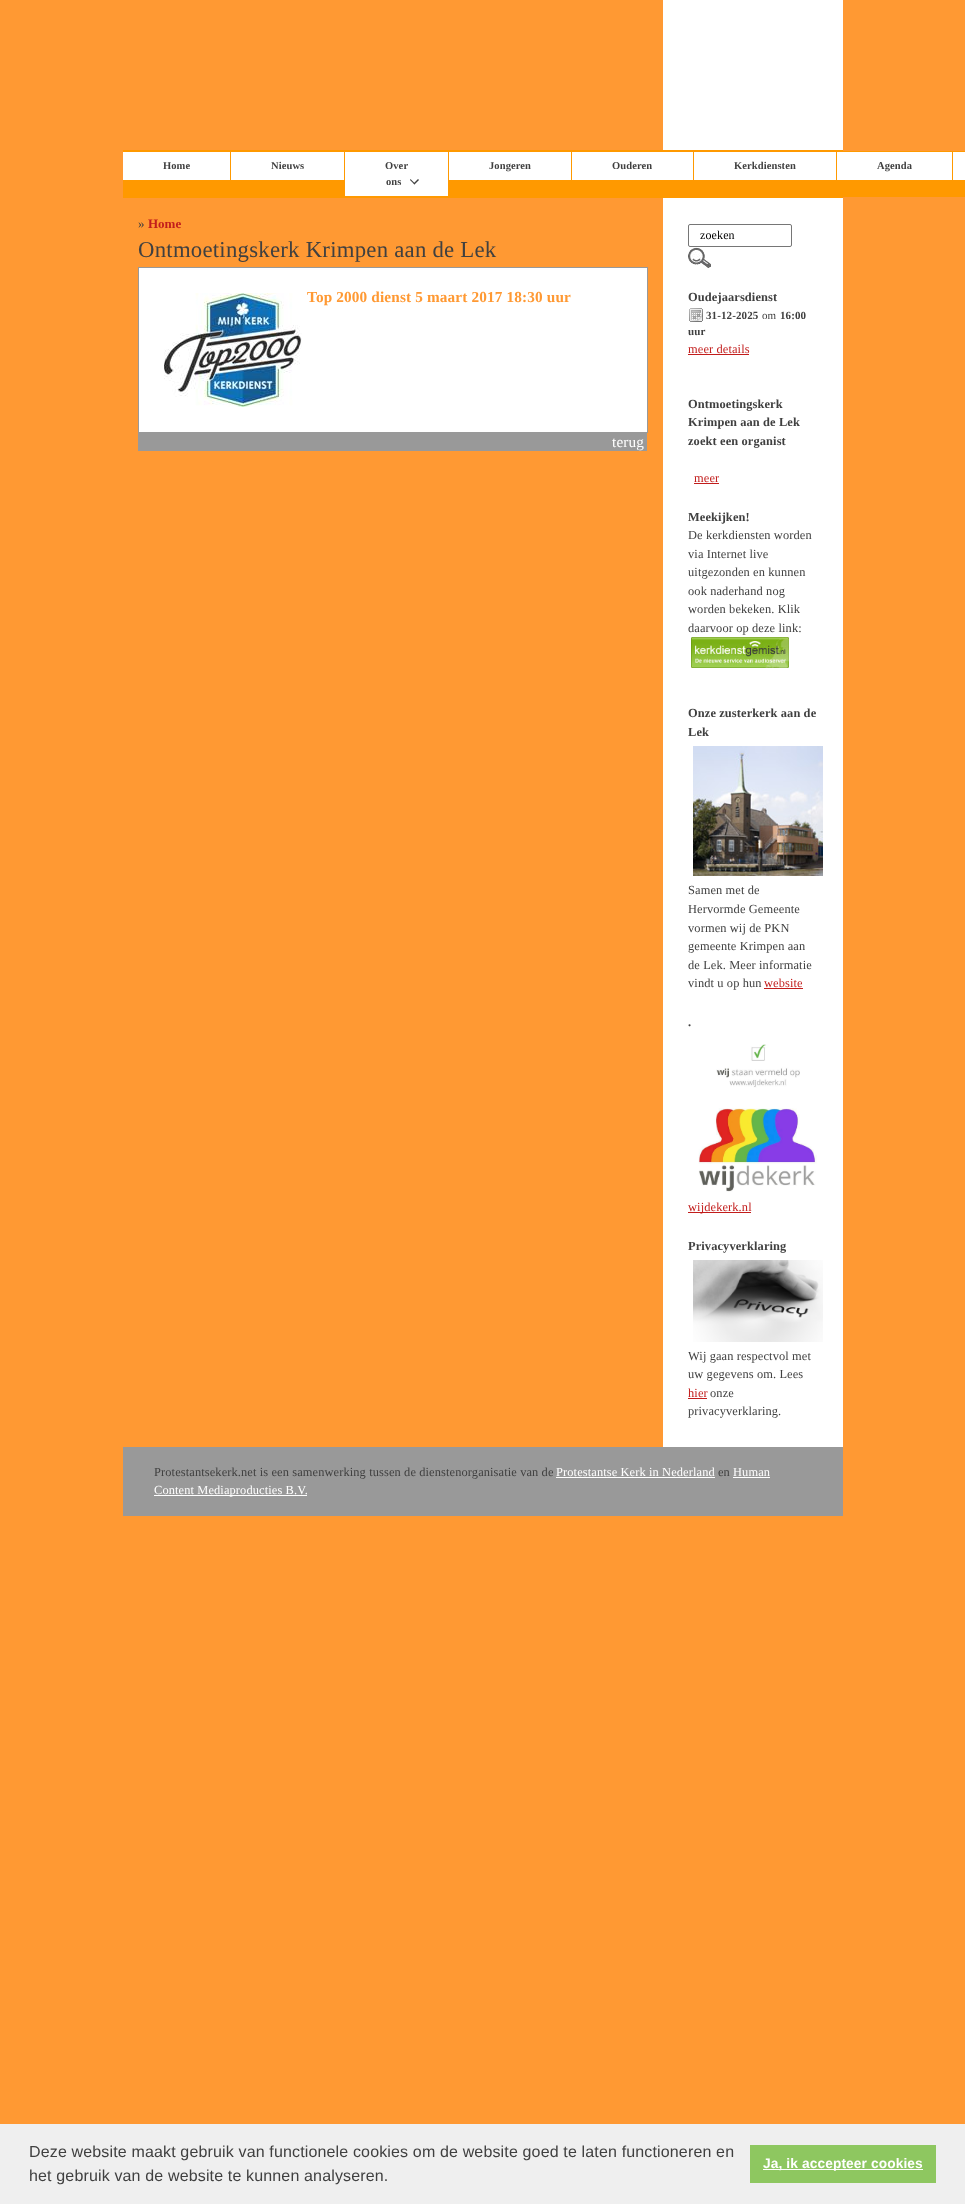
<svg xmlns="http://www.w3.org/2000/svg" width="965" height="2204" viewBox="0 0 965 2204">
  <rect width="100%" height="100%" fill="#f93"/>
  <path d="M663 0h180v150H663z" fill="#fff"/>
  <path d="M123 150h720v1H123z" fill="#f90"/>
  <path d="M123 197h720v1H123z" fill="#f90"/>
  <path d="M123 151h222v46H123z" fill="#f90"/>
  <path d="M123 152h107v28H123z" fill="#fff"/>
  <path d="M231 152h113v28H231z" fill="#fff"/>
  <path d="M345 151h620v46H345z" fill="#f90"/>
  <path d="M345 152h103v44H345z" fill="#fff"/>
  <path d="M419 180L414.5 184.5L413.5 183.5L418 179Z" fill="#404040"/>
  <path d="M415 183.5L414.5 184.5L410 180L410.5 179Z" fill="#404040"/>
  <path d="M449 152h122v28H449z" fill="#fff"/>
  <path d="M572 152h121v28H572z" fill="#fff"/>
  <path d="M694 152h142v28H694z" fill="#fff"/>
  <path d="M837 152h115v28H837z" fill="#fff"/>
  <path d="M953 152h12v28H953z" fill="#fff"/>
  <path d="M139 268h508v164H139z" fill="#fff"/>
  <path d="M138 267h510v1H138z" fill="#999"/>
  <path d="M647 267h1v166H647z" fill="#999"/>
  <path d="M138 432h510v1H138z" fill="#999"/>
  <path d="M138 267h1v166H138z" fill="#999"/>
  <image x="164" y="293" width="138" height="114" href="img/1.png"/>
  <path d="M138 433h509v18H138z" fill="#999"/>
  <path d="M663 198h180v1249H663z" fill="#fff"/>
  <rect x="688.5" y="224.5" width="103" height="22" rx="1.5" fill="none" stroke="#767676"/>
  <image x="688" y="247" width="23" height="21" href="img/2.png"/>
  <image x="689" y="308" width="14" height="14" href="img/3.png"/>
  <path d="M688 354h61v1H688z" fill="#c21d1c"/>
  <path d="M694 483h25v1H694z" fill="#c21d1c"/>
  <image x="691" y="637" width="98" height="31" href="img/4.png"/>
  <image x="693" y="746" width="130" height="130" href="img/5.png"/>
  <path d="M764 988h39v1H764z" fill="#c21d1c"/>
  <image x="698" y="1044" width="119" height="148" href="img/6.png"/>
  <path d="M688 1212h63v1H688z" fill="#c21d1c"/>
  <image x="693" y="1260" width="130" height="82" href="img/7.png"/>
  <path d="M688 1398h19v1H688z" fill="#c21d1c"/>
  <path d="M123 1447h720v69H123z" fill="#999"/>
  <path d="M556 1477h159v1H556z" fill="#fff"/>
  <path d="M733 1477h37v1H733z" fill="#fff"/>
  <path d="M154 1495h153v1H154z" fill="#fff"/>
  <path d="M0 2124h965v80H0z" fill="#efefef"/>
  <path d="M750 2145h186v38H750z" fill="#8ec760"/>
  <path d="M763 2169h160v1H763z" fill="#fff"/>
  <g font-family="Liberation Serif" font-size="10.5" font-weight="bold" letter-spacing="0.1" fill="#404040">
    <text x="163" y="169">Home</text>
    <text x="271" y="169">Nieuws</text>
    <text x="385" y="169">Over</text>
    <text x="386" y="185">ons</text>
    <text x="489" y="169">Jongeren</text>
    <text x="612" y="169">Ouderen</text>
    <text x="734" y="169">Kerkdiensten</text>
    <text x="877" y="169">Agenda</text>
  </g>
  <text x="138" y="228" font-family="Liberation Serif" font-size="13" fill="#404040">»</text>
  <text x="148" y="228" font-family="Liberation Serif" font-size="13" font-weight="bold" fill="#c21d1c">Home</text>
  <text x="138" y="257" font-family="Liberation Serif" font-size="22.75" letter-spacing="0.25" fill="#404040">Ontmoetingskerk Krimpen aan de Lek</text>
  <text x="307" y="302" font-family="Liberation Serif" font-size="15.25" font-weight="bold" letter-spacing="0.15" fill="#f93">Top 2000 dienst 5 maart 2017 18:30 uur</text>
  <text x="612" y="447" font-family="Liberation Serif" font-size="15.25" letter-spacing="0.15" fill="#fff">terug</text>
  <text x="700" y="239" font-family="Liberation Serif" font-size="12" letter-spacing="0.12" fill="#000">zoeken</text>
  <text x="688" y="301" font-family="Liberation Serif" font-size="12.4" font-weight="bold" letter-spacing="0.12" fill="#404040">Oudejaarsdienst</text>
  <text x="706" y="319" font-family="Liberation Serif" font-size="11" font-weight="bold" letter-spacing="0.1" fill="#404040">31-12-2025</text>
  <text x="762" y="319" font-family="Liberation Serif" font-size="11" letter-spacing="0.1" fill="#404040">om</text>
  <g font-family="Liberation Serif" font-size="11" font-weight="bold" letter-spacing="0.1" fill="#404040">
    <text x="780" y="319">16:00</text>
    <text x="688" y="335">uur</text>
  </g>
  <text x="688" y="353" font-family="Liberation Serif" font-size="12.4" letter-spacing="0.12" fill="#c21d1c">meer details</text>
  <g font-family="Liberation Serif" font-size="12.4" font-weight="bold" letter-spacing="0.12" fill="#404040">
    <text x="688" y="408">Ontmoetingskerk</text>
    <text x="688" y="426">Krimpen aan de Lek</text>
    <text x="688" y="445">zoekt een organist</text>
  </g>
  <text x="694" y="482" font-family="Liberation Serif" font-size="12.4" letter-spacing="0.12" fill="#c21d1c">meer</text>
  <text x="688" y="521" font-family="Liberation Serif" font-size="12.4" font-weight="bold" letter-spacing="0.12" fill="#404040">Meekijken!</text>
  <g font-family="Liberation Serif" font-size="12.4" letter-spacing="0.12" fill="#404040">
    <text x="688" y="539">De kerkdiensten worden</text>
    <text x="688" y="558">via Internet live</text>
    <text x="688" y="576">uitgezonden en kunnen</text>
    <text x="688" y="595">ook naderhand nog</text>
    <text x="688" y="613">worden bekeken. Klik</text>
    <text x="688" y="632">daarvoor op deze link:</text>
  </g>
  <g font-family="Liberation Serif" font-size="12.4" font-weight="bold" letter-spacing="0.12" fill="#404040">
    <text x="688" y="717">Onze zusterkerk aan de</text>
    <text x="688" y="736">Lek</text>
  </g>
  <g font-family="Liberation Serif" font-size="12.4" letter-spacing="0.12" fill="#404040">
    <text x="688" y="894">Samen met de</text>
    <text x="688" y="913">Hervormde Gemeente</text>
    <text x="688" y="932">vormen wij de PKN</text>
    <text x="688" y="950">gemeente Krimpen aan</text>
    <text x="688" y="969">de Lek. Meer informatie</text>
    <text x="688" y="987">vindt u op hun</text>
  </g>
  <text x="764" y="987" font-family="Liberation Serif" font-size="12.4" letter-spacing="0.12" fill="#c21d1c">website</text>
  <text x="688" y="1026" font-family="Liberation Serif" font-size="12.4" font-weight="bold" letter-spacing="0.12" fill="#404040">.</text>
  <text x="688" y="1211" font-family="Liberation Serif" font-size="12.4" letter-spacing="0.12" fill="#c21d1c">wijdekerk.nl</text>
  <text x="688" y="1250" font-family="Liberation Serif" font-size="12.4" font-weight="bold" letter-spacing="0.12" fill="#404040">Privacyverklaring</text>
  <g font-family="Liberation Serif" font-size="12.4" letter-spacing="0.12" fill="#404040">
    <text x="688" y="1360">Wij gaan respectvol met</text>
    <text x="688" y="1378">uw gegevens om. Lees</text>
  </g>
  <text x="688" y="1397" font-family="Liberation Serif" font-size="12.4" letter-spacing="0.12" fill="#c21d1c">hier</text>
  <g font-family="Liberation Serif" font-size="12.4" letter-spacing="0.12" fill="#404040">
    <text x="710" y="1397">onze</text>
    <text x="688" y="1415">privacyverklaring.</text>
    <text x="154" y="1476">Protestantsekerk.net is een samenwerking tussen de dienstenorganisatie van de</text>
  </g>
  <text x="556" y="1476" font-family="Liberation Serif" font-size="12.4" letter-spacing="0.12" fill="#fff">Protestantse Kerk in Nederland</text>
  <text x="718" y="1476" font-family="Liberation Serif" font-size="12.4" letter-spacing="0.12" fill="#404040">en</text>
  <g font-family="Liberation Serif" font-size="12.4" letter-spacing="0.12" fill="#fff">
    <text x="733" y="1476">Human</text>
    <text x="154" y="1494">Content Mediaproducties B.V.</text>
  </g>
  <g font-family="Liberation Sans" font-size="16" letter-spacing="0.15" fill="#404040">
    <text x="29" y="2157">Deze website maakt gebruik van functionele cookies om de website goed te laten functioneren en</text>
    <text x="29" y="2181">het gebruik van de website te kunnen analyseren.</text>
  </g>
  <text x="763" y="2168" font-family="Liberation Sans" font-size="13.75" font-weight="bold" letter-spacing="0.1" fill="#fff">Ja, ik accepteer cookies</text>
</svg>
